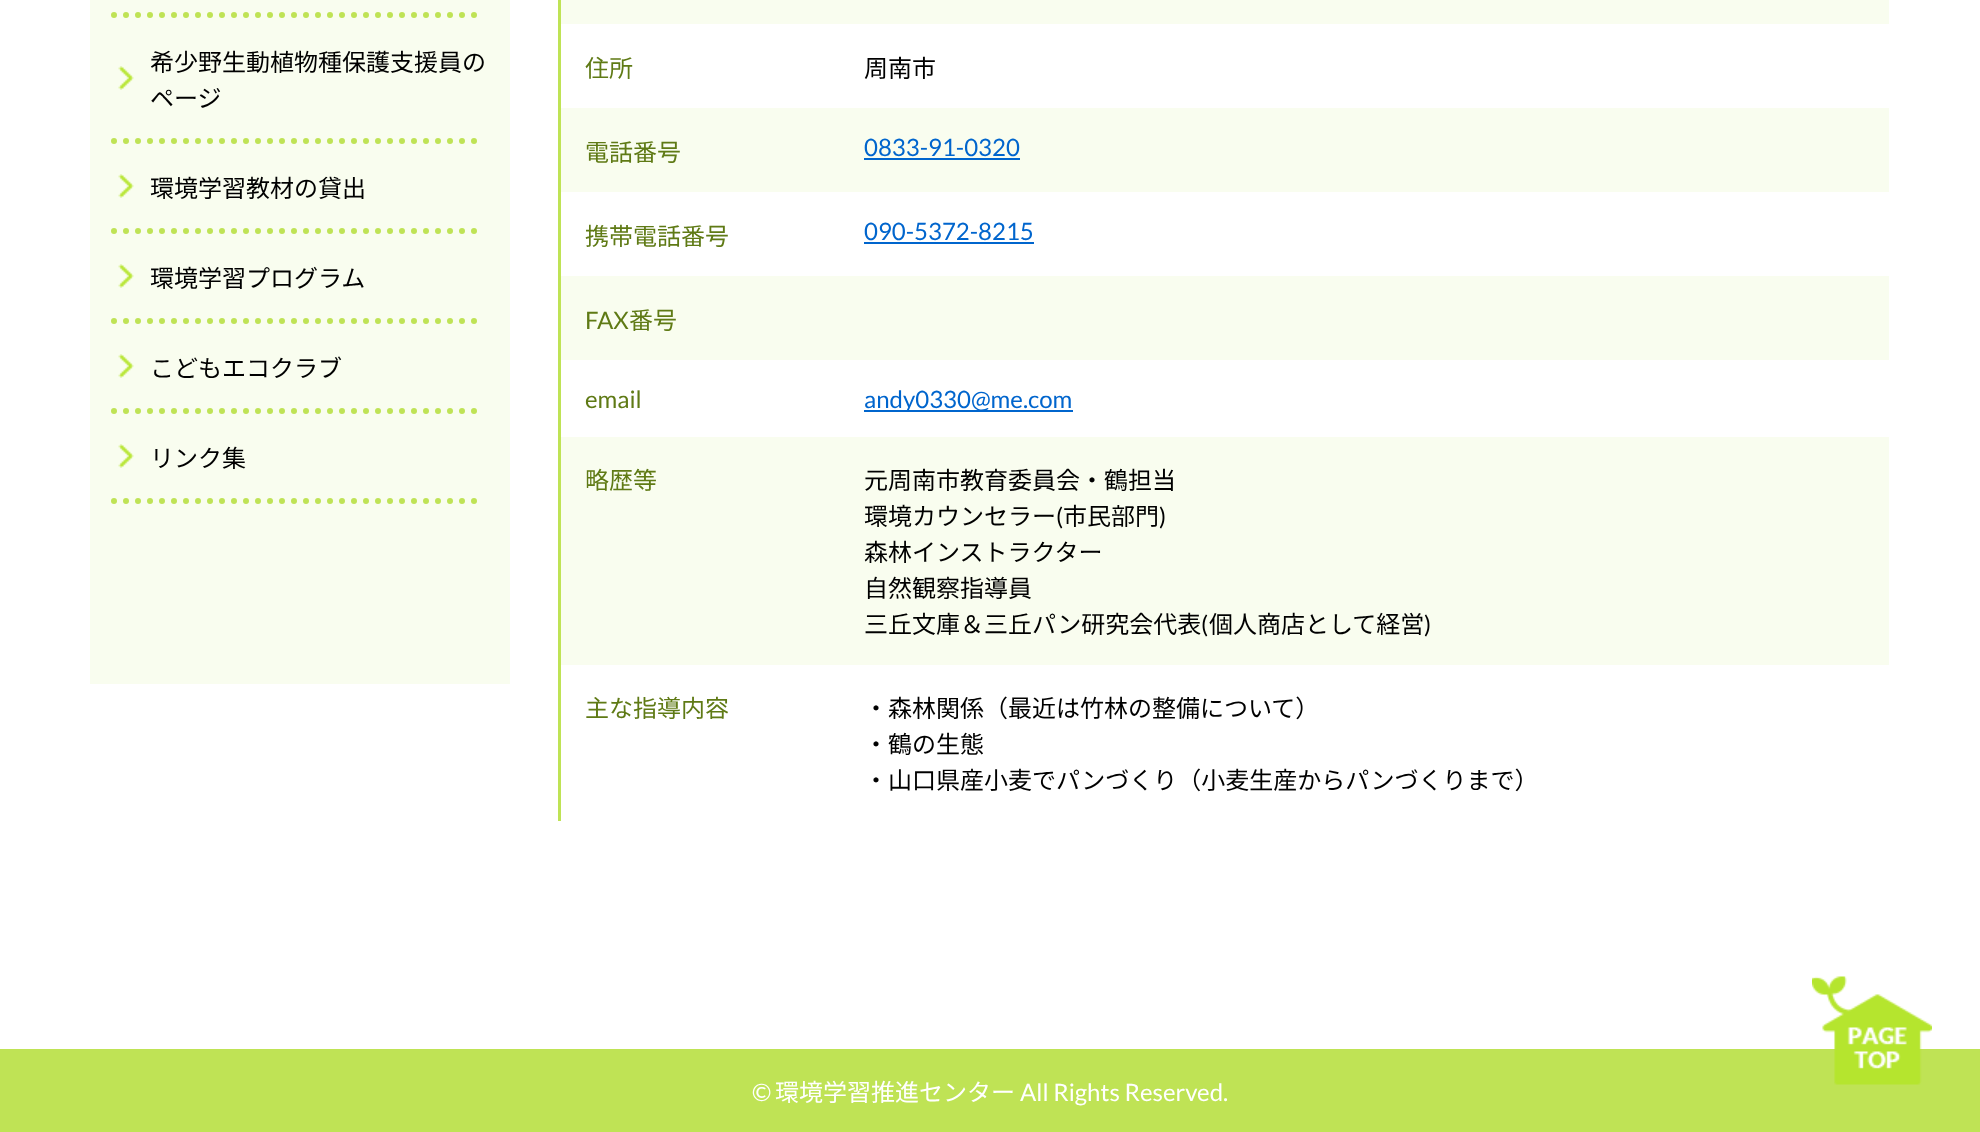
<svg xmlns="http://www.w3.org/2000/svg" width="1980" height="1132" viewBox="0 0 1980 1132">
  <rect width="100%" height="100%" fill="#fff"/>
  <path d="M90 0h420v684H90z" fill="#f9fdef"/>
  <path d="M114 15H486" fill="none" stroke="#bfe355" stroke-width="6" stroke-linecap="round" stroke-dasharray="0 12"/>
  <path d="M114 141H486" fill="none" stroke="#bfe355" stroke-width="6" stroke-linecap="round" stroke-dasharray="0 12"/>
  <image x="118" y="66" width="16" height="24" href="img/1.png"/>
  <path d="M114 231H486" fill="none" stroke="#bfe355" stroke-width="6" stroke-linecap="round" stroke-dasharray="0 12"/>
  <image x="118" y="174" width="16" height="24" href="img/1.png"/>
  <path d="M114 321H486" fill="none" stroke="#bfe355" stroke-width="6" stroke-linecap="round" stroke-dasharray="0 12"/>
  <image x="118" y="264" width="16" height="24" href="img/1.png"/>
  <path d="M114 411H486" fill="none" stroke="#bfe355" stroke-width="6" stroke-linecap="round" stroke-dasharray="0 12"/>
  <image x="118" y="354" width="16" height="24" href="img/1.png"/>
  <path d="M114 501H486" fill="none" stroke="#bfe355" stroke-width="6" stroke-linecap="round" stroke-dasharray="0 12"/>
  <image x="118" y="444" width="16" height="24" href="img/1.png"/>
  <path d="M558 0h3v821H558z" fill="#bfe355"/>
  <path d="M561 0h1328v24H561z" fill="#f9fdef"/>
  <path d="M561 108h1328v84H561z" fill="#f9fdef"/>
  <path d="M864 158h156v2H864z" fill="#0065cd"/>
  <path d="M864 242h170v2H864z" fill="#0065cd"/>
  <path d="M561 276h1328v84H561z" fill="#f9fdef"/>
  <path d="M864 410h209v2H864z" fill="#0065cd"/>
  <path d="M561 437h1328v228H561z" fill="#f9fdef"/>
  <path d="M0 1049h1980v83H0z" fill="#bfe355"/>
  <image x="1812" y="976" width="120" height="109" href="img/2.png"/>
  <g font-family="Noto Sans JP" font-size="24" fill="#000">
    <text x="150" y="71">希少野生動植物種保護支援員の</text>
    <text x="150" y="107">ページ</text>
    <text x="150" y="197">環境学習教材の貸出</text>
    <text x="150" y="287">環境学習プログラム</text>
    <text x="150" y="377">こどもエコクラブ</text>
    <text x="150" y="467">リンク集</text>
  </g>
  <text x="585" y="77" font-family="Noto Sans JP" font-size="24" fill="#5f7a15">住所</text>
  <text x="864" y="77" font-family="Noto Sans JP" font-size="24" fill="#000">周南市</text>
  <text x="585" y="161" font-family="Noto Sans JP" font-size="24" fill="#5f7a15">電話番号</text>
  <text x="864" y="156" font-family="Lato" font-size="24" fill="#0065cd">0833-91-0320</text>
  <text x="585" y="245" font-family="Noto Sans JP" font-size="24" fill="#5f7a15">携帯電話番号</text>
  <text x="864" y="240" font-family="Lato" font-size="24" fill="#0065cd">090-5372-8215</text>
  <text x="585" y="329" font-family="Lato" font-size="24" fill="#5f7a15">FAX</text>
  <text x="629" y="329" font-family="Noto Sans JP" font-size="24" fill="#5f7a15">番号</text>
  <text x="585" y="408" font-family="Lato" font-size="24" fill="#5f7a15">email</text>
  <text x="864" y="408" font-family="Lato" font-size="24" fill="#0065cd">andy0330@me.com</text>
  <text x="585" y="489" font-family="Noto Sans JP" font-size="24" fill="#5f7a15">略歴等</text>
  <g font-family="Noto Sans JP" font-size="24" fill="#000">
    <text x="864" y="489">元周南市教育委員会・鶴担当</text>
    <text x="864" y="525">環境カウンセラー</text>
  </g>
  <text x="1056" y="525" font-family="Lato" font-size="24" fill="#000">(</text>
  <text x="1063" y="525" font-family="Noto Sans JP" font-size="24" fill="#000">市民部門</text>
  <text x="1159" y="525" font-family="Lato" font-size="24" fill="#000">)</text>
  <g font-family="Noto Sans JP" font-size="24" fill="#000">
    <text x="864" y="561">森林インストラクター</text>
    <text x="864" y="597">自然観察指導員</text>
    <text x="864" y="633">三丘文庫＆三丘パン研究会代表</text>
  </g>
  <text x="1201" y="633" font-family="Lato" font-size="24" fill="#000">(</text>
  <text x="1209" y="633" font-family="Noto Sans JP" font-size="24" fill="#000">個人商店として経営</text>
  <text x="1424" y="633" font-family="Lato" font-size="24" fill="#000">)</text>
  <text x="585" y="717" font-family="Noto Sans JP" font-size="24" fill="#5f7a15">主な指導内容</text>
  <g font-family="Noto Sans JP" font-size="24" fill="#000">
    <text x="864" y="717">・森林関係（最近は竹林の整備について）</text>
    <text x="864" y="753">・鶴の生態</text>
    <text x="864" y="789">・山口県産小麦でパンづくり（小麦生産からパンづくりまで）</text>
  </g>
  <text x="752" y="1101" font-family="Lato" font-size="24" fill="#fff">©</text>
  <text x="775" y="1101" font-family="Noto Sans JP" font-size="24" fill="#fff">環境学習推進センター</text>
  <text x="1020" y="1101" font-family="Lato" font-size="24" fill="#fff">All Rights Reserved.</text>
</svg>
